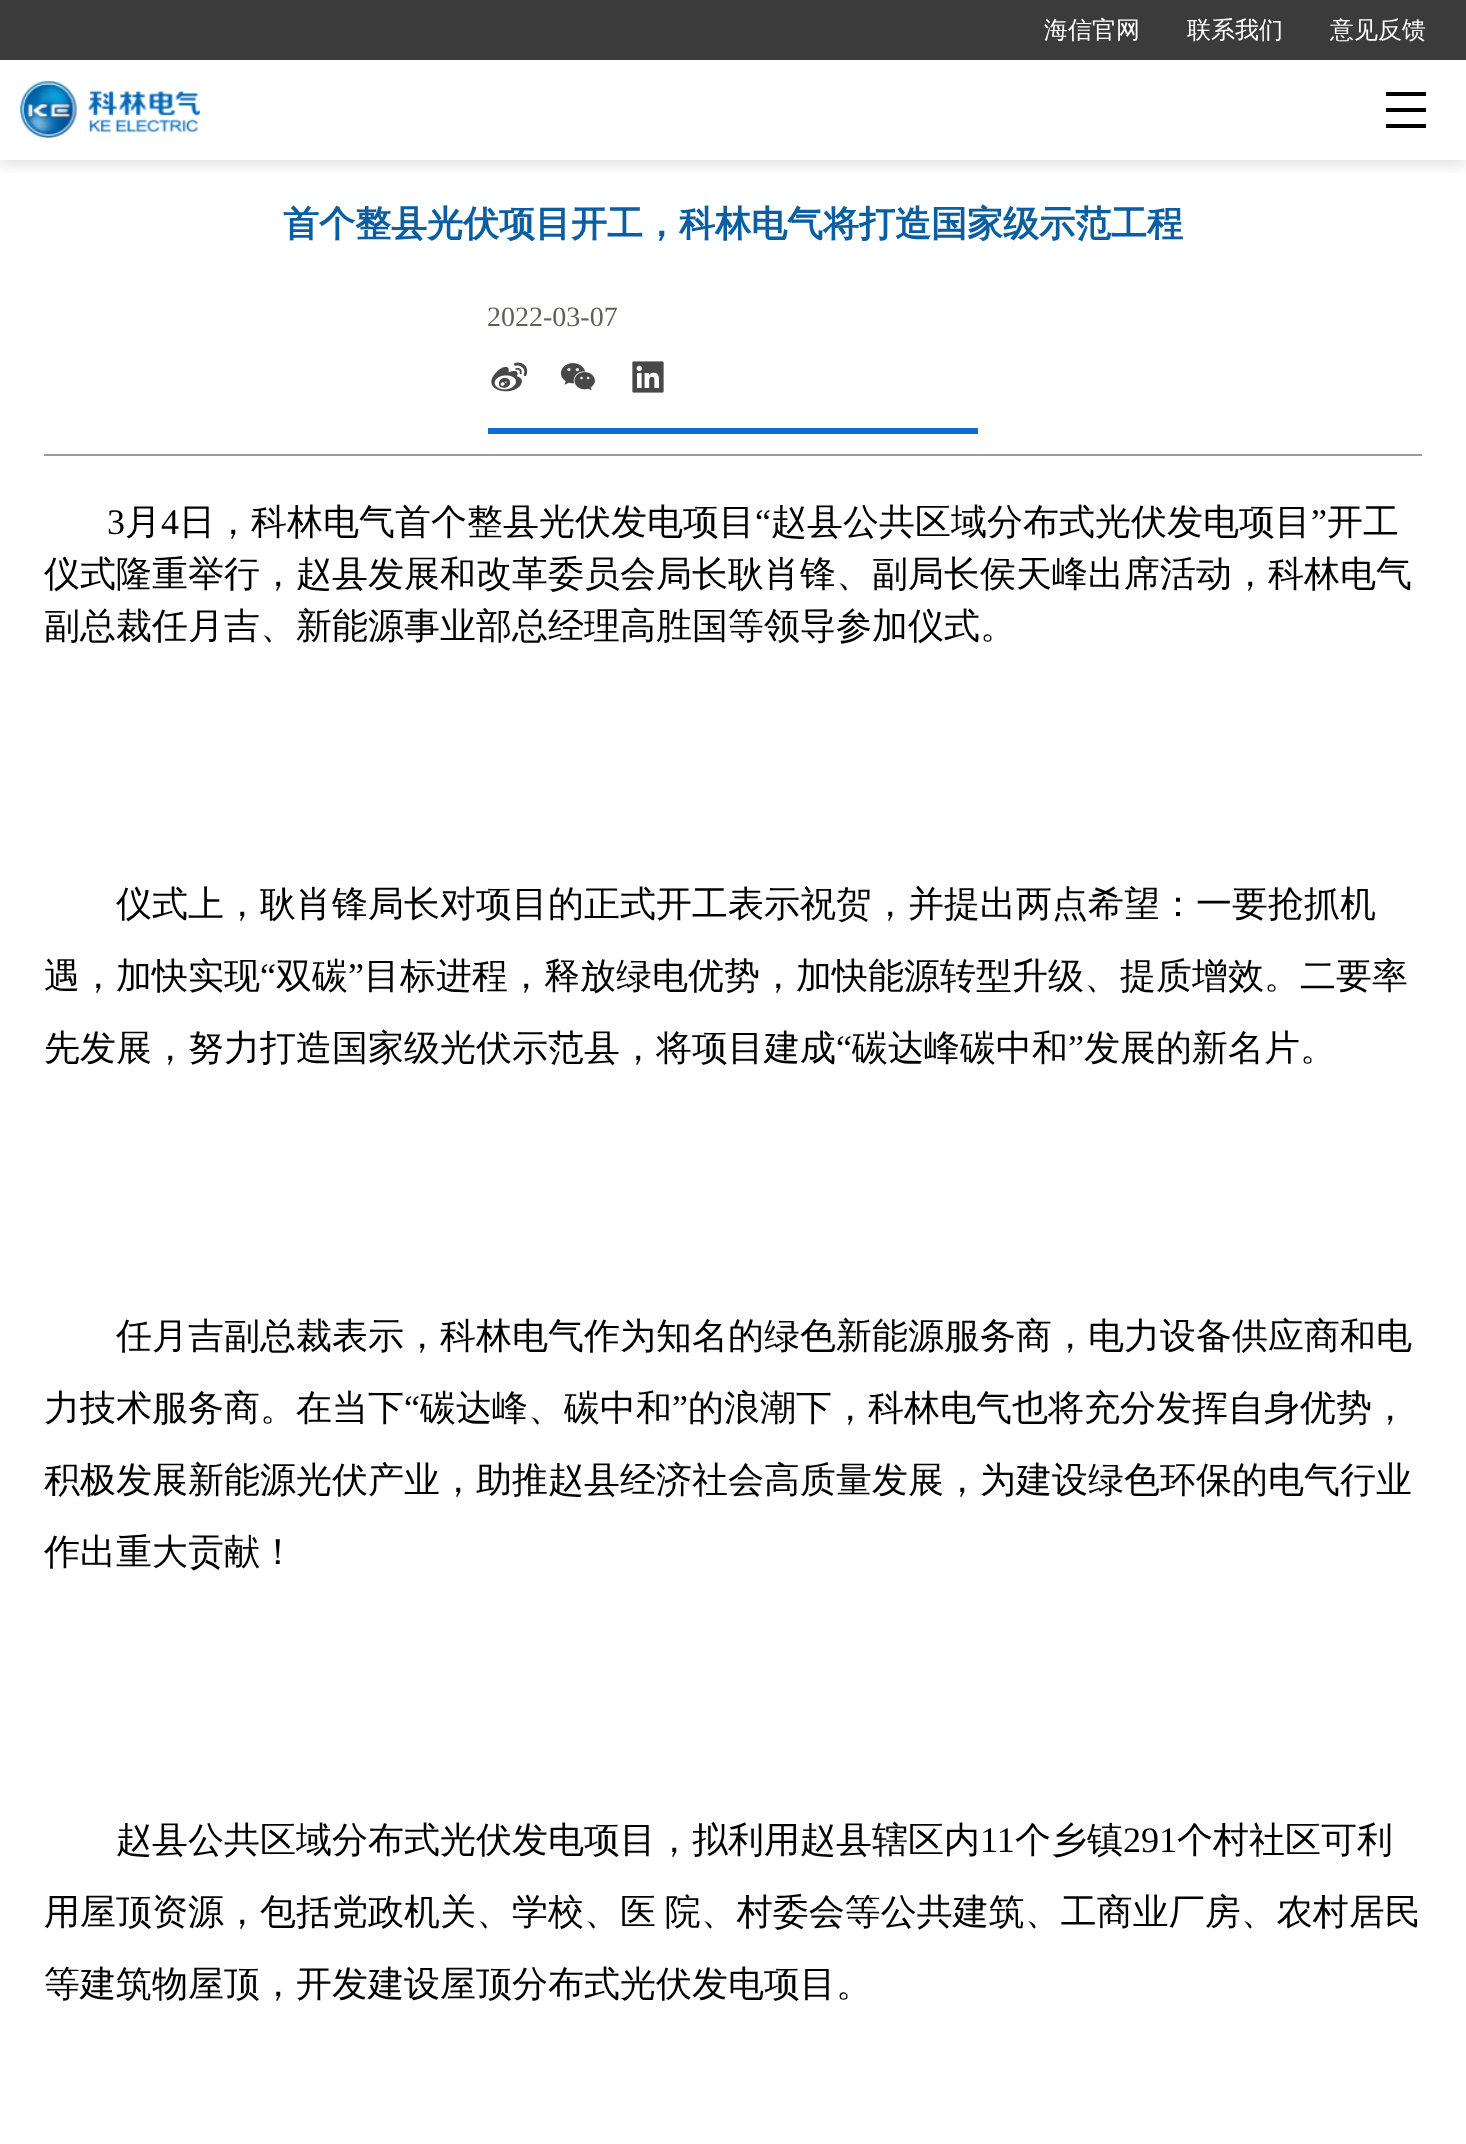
<svg xmlns="http://www.w3.org/2000/svg" width="1466" height="2144" viewBox="0 0 1466 2144">
  <defs>
    <clipPath id="clip1"><path d="M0 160h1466v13H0z"/></clipPath>
  </defs>
  <rect width="100%" height="100%" fill="#fff"/>
  <g clip-path="url(#clip1)">
    <path d="M0 0h1466v160H0z" fill="#00000033" filter="blur(10px)"/>
  </g>
  <path d="M0 0h1466v60H0z" fill="#3b3b3b"/>
  <image x="20" y="80" width="180" height="59" href="img/1.png"/>
  <path d="M1386 92h40v4H1386z" fill="#000"/>
  <path d="M1386 108h40v4H1386z" fill="#000"/>
  <path d="M1386 124h40v4H1386z" fill="#000"/>
  <path d="M44 454h1378v2H44z" fill="#9b9b9b"/>
  <path d="M488 428h490v6H488z" fill="#0e6cd5"/>
  <image x="491" y="362" width="37" height="30" href="img/2.png"/>
  <image x="560" y="363" width="35" height="28" href="img/3.png"/>
  <image x="632" y="361" width="32" height="32" href="img/4.png"/>
  <g font-family="WenQuanYi Zen Hei" font-size="24" font-weight="500" fill="#fff">
    <text x="1044" y="38">海信官网</text>
    <text x="1187" y="38">联系我们</text>
    <text x="1330" y="38">意见反馈</text>
  </g>
  <text x="283" y="236" font-family="WenQuanYi Zen Hei" font-size="36" font-weight="bold" fill="#0b5ea1">首个整县光伏项目开工，科林电气将打造国家级示范工程</text>
  <text x="487" y="326" font-family="Liberation Serif" font-size="28" fill="#645e56">2022-03-07</text>
  <text x="107" y="534" font-family="Liberation Serif" font-size="36" fill="#000">3</text>
  <text x="125" y="534" font-family="WenQuanYi Zen Hei" font-size="36" font-weight="500" fill="#000">月</text>
  <text x="161" y="534" font-family="Liberation Serif" font-size="36" fill="#000">4</text>
  <text x="179" y="534" font-family="WenQuanYi Zen Hei" font-size="36" font-weight="500" fill="#000">日，科林电气首个整县光伏发电项目</text>
  <text x="755" y="534" font-family="Liberation Serif" font-size="36" fill="#000">“</text>
  <text x="771" y="534" font-family="WenQuanYi Zen Hei" font-size="36" font-weight="500" fill="#000">赵县公共区域分布式光伏发电项目</text>
  <text x="1311" y="534" font-family="Liberation Serif" font-size="36" fill="#000">”</text>
  <g font-family="WenQuanYi Zen Hei" font-size="36" font-weight="500" fill="#000">
    <text x="1327" y="534">开工</text>
    <text x="44" y="586">仪式隆重举行，赵县发展和改革委员会局长耿肖锋、副局长侯天峰出席活动，科林电气</text>
    <text x="44" y="638">副总裁任月吉、新能源事业部总经理高胜国等领导参加仪式。</text>
    <text x="116" y="916">仪式上，耿肖锋局长对项目的正式开工表示祝贺，并提出两点希望：一要抢抓机</text>
    <text x="44" y="988">遇，加快实现</text>
  </g>
  <text x="260" y="988" font-family="Liberation Serif" font-size="36" fill="#000">“</text>
  <text x="276" y="988" font-family="WenQuanYi Zen Hei" font-size="36" font-weight="500" fill="#000">双碳</text>
  <text x="348" y="988" font-family="Liberation Serif" font-size="36" fill="#000">”</text>
  <g font-family="WenQuanYi Zen Hei" font-size="36" font-weight="500" fill="#000">
    <text x="364" y="988">目标进程，释放绿电优势，加快能源转型升级、提质增效。二要率</text>
    <text x="44" y="1060">先发展，努力打造国家级光伏示范县，将项目建成</text>
  </g>
  <text x="836" y="1060" font-family="Liberation Serif" font-size="36" fill="#000">“</text>
  <text x="852" y="1060" font-family="WenQuanYi Zen Hei" font-size="36" font-weight="500" fill="#000">碳达峰碳中和</text>
  <text x="1068" y="1060" font-family="Liberation Serif" font-size="36" fill="#000">”</text>
  <g font-family="WenQuanYi Zen Hei" font-size="36" font-weight="500" fill="#000">
    <text x="1084" y="1060">发展的新名片。</text>
    <text x="116" y="1348">任月吉副总裁表示，科林电气作为知名的绿色新能源服务商，电力设备供应商和电</text>
    <text x="44" y="1420">力技术服务商。在当下</text>
  </g>
  <text x="404" y="1420" font-family="Liberation Serif" font-size="36" fill="#000">“</text>
  <text x="420" y="1420" font-family="WenQuanYi Zen Hei" font-size="36" font-weight="500" fill="#000">碳达峰、碳中和</text>
  <text x="672" y="1420" font-family="Liberation Serif" font-size="36" fill="#000">”</text>
  <g font-family="WenQuanYi Zen Hei" font-size="36" font-weight="500" fill="#000">
    <text x="688" y="1420">的浪潮下，科林电气也将充分发挥自身优势，</text>
    <text x="44" y="1492">积极发展新能源光伏产业，助推赵县经济社会高质量发展，为建设绿色环保的电气行业</text>
    <text x="44" y="1564">作出重大贡献！</text>
    <text x="116" y="1852">赵县公共区域分布式光伏发电项目，拟利用赵县辖区内</text>
  </g>
  <text x="980" y="1852" font-family="Liberation Serif" font-size="36" fill="#000">11</text>
  <text x="1015" y="1852" font-family="WenQuanYi Zen Hei" font-size="36" font-weight="500" fill="#000">个乡镇</text>
  <text x="1123" y="1852" font-family="Liberation Serif" font-size="36" fill="#000">291</text>
  <g font-family="WenQuanYi Zen Hei" font-size="36" font-weight="500" fill="#000">
    <text x="1177" y="1852">个村社区可利</text>
    <text x="44" y="1924" word-spacing="-2">用屋顶资源，包括党政机关、学校、医 院、村委会等公共建筑、工商业厂房、农村居民</text>
    <text x="44" y="1996">等建筑物屋顶，开发建设屋顶分布式光伏发电项目。</text>
  </g>
</svg>
